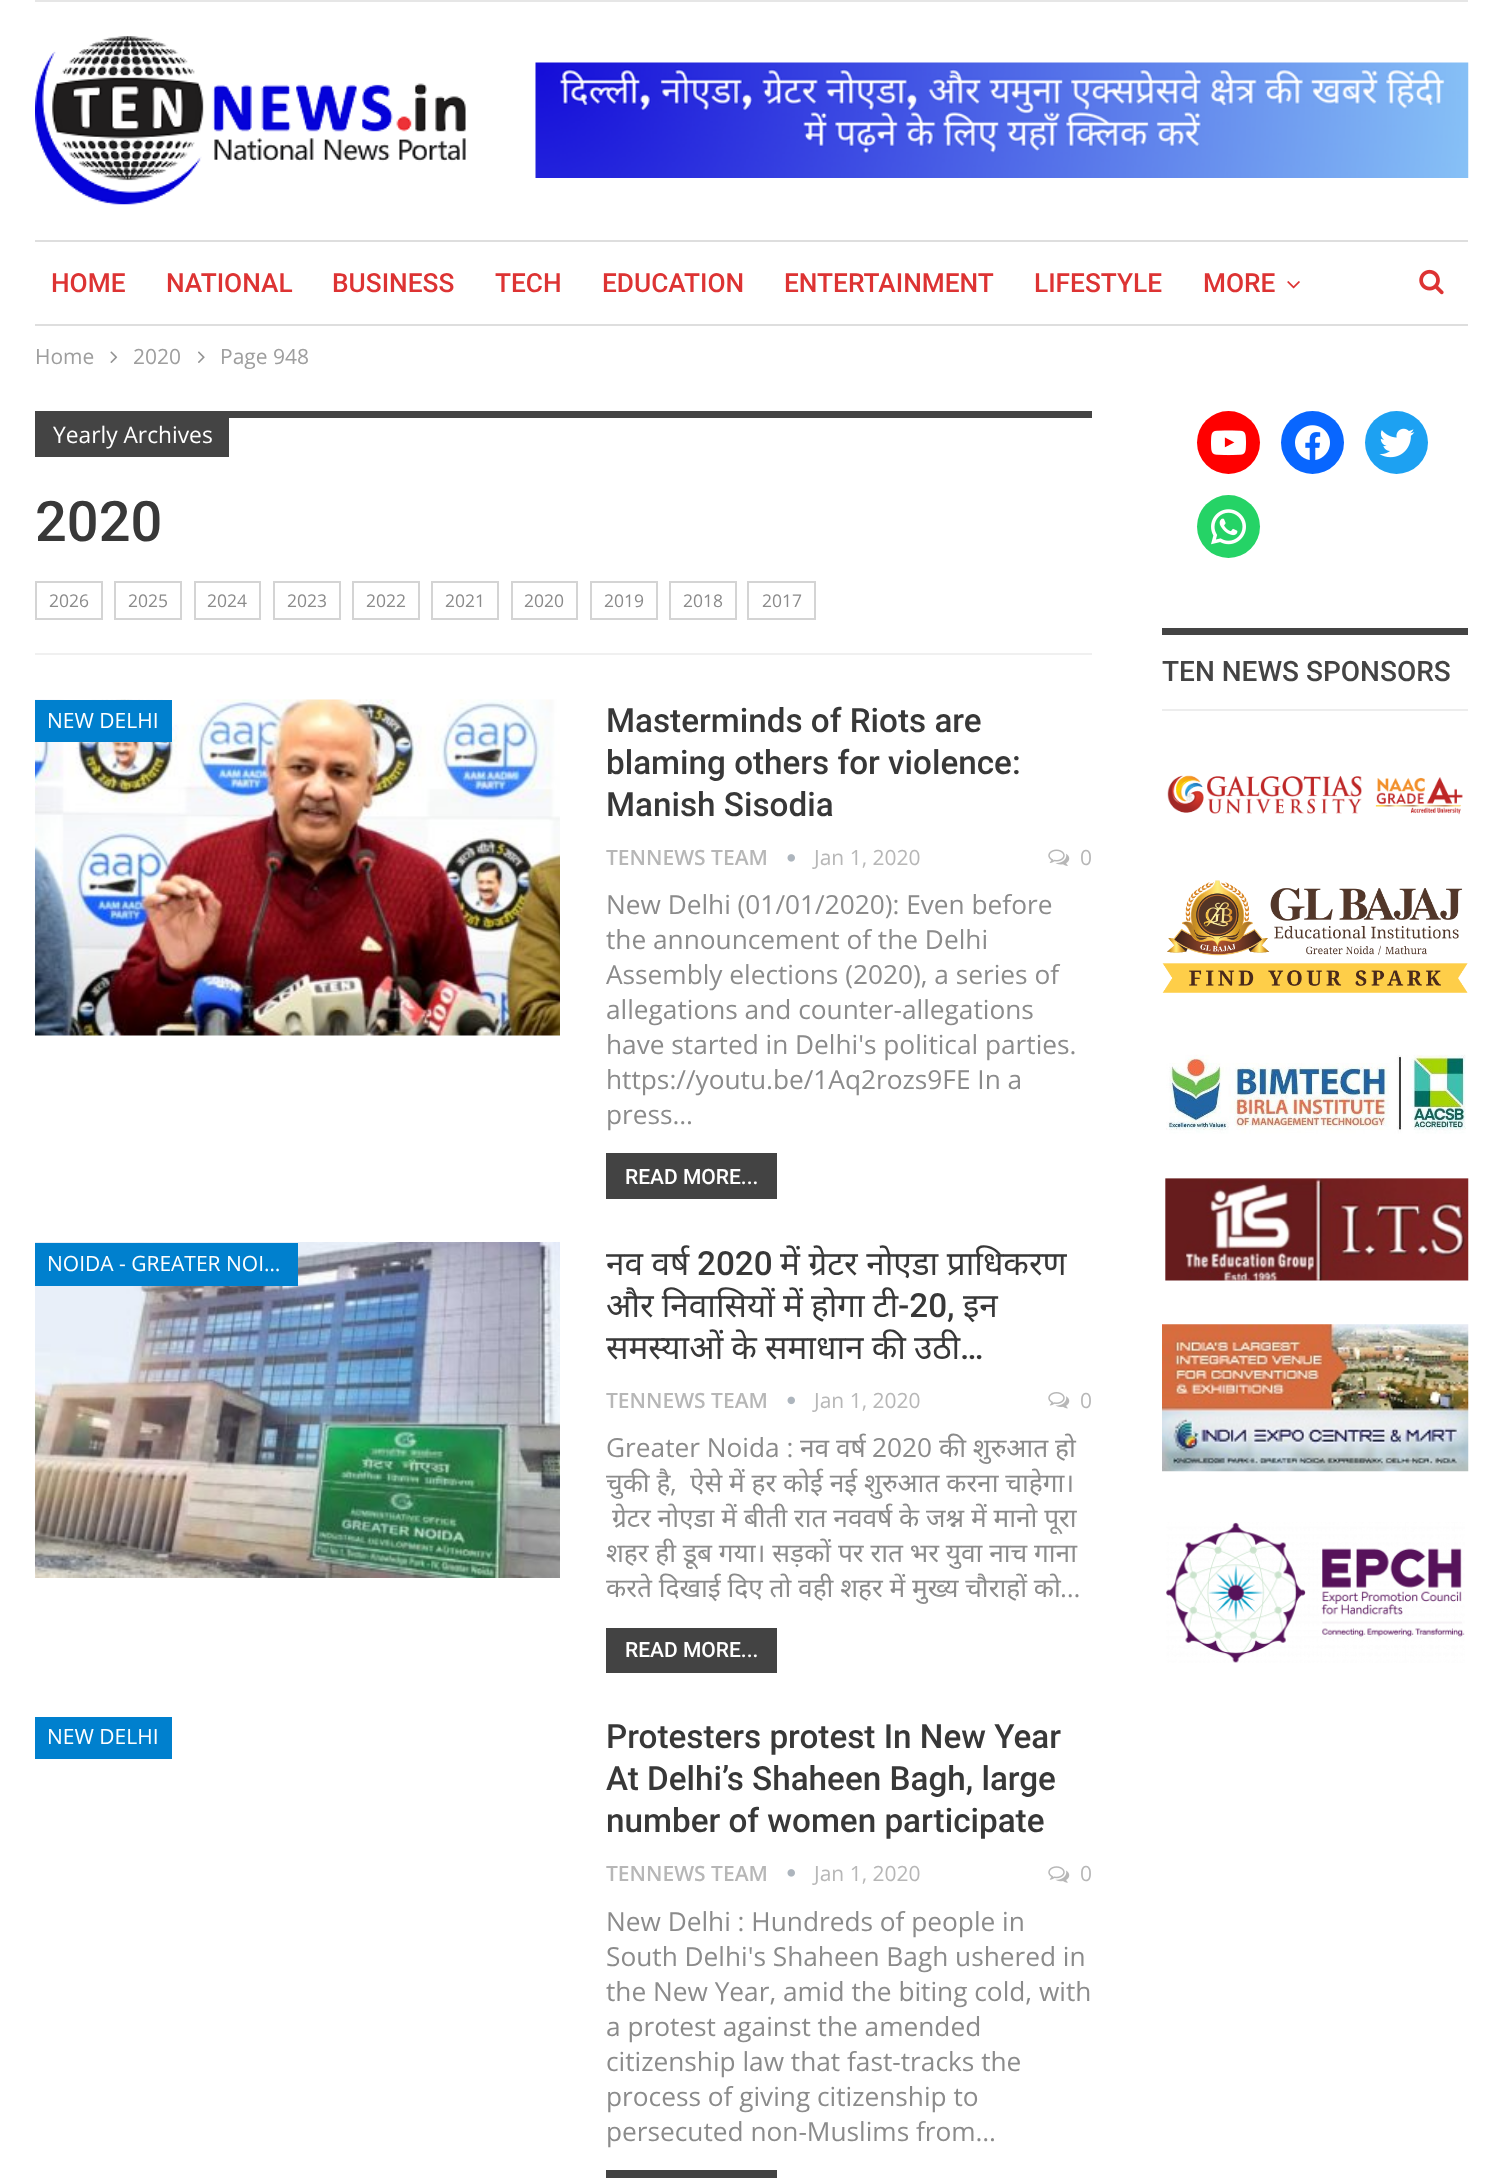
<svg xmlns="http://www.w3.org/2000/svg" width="1502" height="2178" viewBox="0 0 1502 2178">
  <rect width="100%" height="100%" fill="#fff"/>
  <path d="M35 0h1433v2H35z" fill="#e6e6e6"/>
  <image x="35" y="36" width="431" height="169" href="img/1.png"/>
  <image x="535" y="62" width="934" height="116" href="img/2.png"/>
  <path d="M35 240h1433v2H35z" fill="#dedede"/>
  <path d="M35 324h1433v2H35z" fill="#dedede"/>
  <image x="1287" y="281" width="13" height="8" href="img/3.png"/>
  <image x="1419" y="269" width="25" height="26" href="img/4.png"/>
  <image x="110" y="351" width="8" height="12" href="img/5.png"/>
  <image x="198" y="351" width="7" height="12" href="img/6.png"/>
  <path d="M35 653h1057v2H35z" fill="#f0f0f0"/>
  <path d="M229 411h863v7H229z" fill="#444"/>
  <path d="M35 411h194v46H35z" fill="#444"/>
  <path d="M36 582h66v37H36z" fill="none" stroke="#d4d4d4" stroke-width="2"/>
  <path d="M115 582h66v37H115z" fill="none" stroke="#d4d4d4" stroke-width="2"/>
  <path d="M195 582h65v37H195z" fill="none" stroke="#d4d4d4" stroke-width="2"/>
  <path d="M274 582h66v37H274z" fill="none" stroke="#d4d4d4" stroke-width="2"/>
  <path d="M353 582h66v37H353z" fill="none" stroke="#d4d4d4" stroke-width="2"/>
  <path d="M432 582h66v37H432z" fill="none" stroke="#d4d4d4" stroke-width="2"/>
  <path d="M512 582h65v37H512z" fill="none" stroke="#d4d4d4" stroke-width="2"/>
  <path d="M591 582h66v37H591z" fill="none" stroke="#d4d4d4" stroke-width="2"/>
  <path d="M670 582h66v37H670z" fill="none" stroke="#d4d4d4" stroke-width="2"/>
  <path d="M748 582h67v37H748z" fill="none" stroke="#d4d4d4" stroke-width="2"/>
  <image x="35" y="699" width="525" height="337" href="img/7.png"/>
  <path d="M35 700h137v42H35z" fill="#0080ce"/>
  <image x="787" y="854" width="8" height="8" href="img/8.png"/>
  <image x="1048" y="849" width="22" height="17" href="img/9.png"/>
  <path d="M606 1153h171v46H606z" fill="#434343"/>
  <image x="35" y="1242" width="525" height="336" href="img/10.png"/>
  <path d="M35 1243h263v43H35z" fill="#0080ce"/>
  <image x="787" y="1396" width="8" height="9" href="img/11.png"/>
  <image x="1048" y="1392" width="22" height="17" href="img/12.png"/>
  <path d="M606 1628h171v45H606z" fill="#434343"/>
  <path d="M35 1717h137v42H35z" fill="#0080ce"/>
  <image x="787" y="1869" width="8" height="8" href="img/8.png"/>
  <image x="1048" y="1866" width="22" height="17" href="img/13.png"/>
  <path d="M606 2170h171v8H606z" fill="#434343"/>
  <circle cx="1228.5" cy="442.5" r="31.5" fill="#f00"/>
  <image x="1211" y="430" width="35" height="26" href="img/14.png"/>
  <circle cx="1312.5" cy="442.5" r="31.5" fill="#0866ff"/>
  <image x="1295" y="425" width="35" height="35" href="img/15.png"/>
  <circle cx="1396.5" cy="442.5" r="31.5" fill="#1da1f2"/>
  <image x="1379" y="428" width="36" height="30" href="img/16.png"/>
  <circle cx="1228.5" cy="526.5" r="31.5" fill="#25d366"/>
  <image x="1211" y="509" width="35" height="36" href="img/17.png"/>
  <path d="M1162 628h306v7H1162z" fill="#444"/>
  <path d="M1162 709h306v2H1162z" fill="#ededed"/>
  <image x="1167" y="775" width="296" height="40" href="img/18.png"/>
  <image x="1162" y="880" width="306" height="113" href="img/19.png"/>
  <image x="1166" y="1054" width="300" height="80" href="img/20.png"/>
  <image x="1165" y="1178" width="304" height="103" href="img/21.png"/>
  <image x="1162" y="1324" width="307" height="148" href="img/22.png"/>
  <image x="1166" y="1522" width="299" height="141" href="img/23.png"/>
  <g font-family="Roboto" font-size="26.25" font-weight="500" fill="#d33">
    <text x="51" y="292">HOME</text>
    <text x="166" y="292">NATIONAL</text>
    <text x="332" y="292">BUSINESS</text>
    <text x="495" y="292">TECH</text>
    <text x="602" y="292">EDUCATION</text>
    <text x="784" y="292">ENTERTAINMENT</text>
    <text x="1034" y="292">LIFESTYLE</text>
    <text x="1203" y="292">MORE</text>
  </g>
  <g font-family="Open Sans" font-size="21" fill="#9e9e9e">
    <text x="35" y="364">Home</text>
    <text x="133" y="364">2020</text>
    <text x="220" y="364">Page 948</text>
  </g>
  <text x="53" y="443" font-family="Open Sans" font-size="22.75" fill="#fff">Yearly Archives</text>
  <text x="35" y="541" font-family="Roboto" font-size="56" font-weight="500" fill="#383838">2020</text>
  <g font-family="Open Sans" font-size="17.5" fill="#8b8b8b">
    <text x="49" y="607">2026</text>
    <text x="128" y="607">2025</text>
    <text x="207" y="607">2024</text>
    <text x="287" y="607">2023</text>
    <text x="366" y="607">2022</text>
    <text x="445" y="607">2021</text>
    <text x="524" y="607">2020</text>
    <text x="604" y="607">2019</text>
    <text x="683" y="607">2018</text>
    <text x="762" y="607">2017</text>
  </g>
  <text x="47" y="728" font-family="Open Sans" font-size="21" fill="#fff">NEW DELHI</text>
  <g font-family="Roboto" font-size="33.25" font-weight="500" fill="#383838">
    <text x="606" y="732">Masterminds of Riots are</text>
    <text x="606" y="774">blaming others for violence:</text>
    <text x="606" y="816">Manish Sisodia</text>
  </g>
  <text x="606" y="865" font-family="Open Sans" font-size="21" font-weight="600" fill="#b7b7b7">TENNEWS TEAM</text>
  <g font-family="Open Sans" font-size="21" fill="#b7b7b7">
    <text x="814" y="865">Jan 1, 2020</text>
    <text x="1080" y="865">0</text>
  </g>
  <g font-family="Open Sans" font-size="26.25" fill="#8b8b8b">
    <text x="606" y="914">New Delhi (01/01/2020): Even before</text>
    <text x="606" y="949">the announcement of the Delhi</text>
    <text x="606" y="984">Assembly elections (2020), a series of</text>
    <text x="606" y="1019">allegations and counter-allegations</text>
    <text x="606" y="1054">have started in Delhi's political parties.</text>
    <text x="606" y="1089">https://youtu.be/1Aq2rozs9FE In a</text>
    <text x="606" y="1124">press…</text>
  </g>
  <text x="625" y="1184" font-family="Roboto" font-size="21" font-weight="500" fill="#fff">READ MORE...</text>
  <text x="47" y="1271" font-family="Open Sans" font-size="21" fill="#fff">NOIDA - GREATER NOI…</text>
  <text x="606" y="1275" font-family="Noto Sans" font-size="33.25" fill="#383838">नव वर्ष</text>
  <text x="697" y="1275" font-family="Roboto" font-size="33.25" font-weight="500" fill="#383838">2020</text>
  <g font-family="Noto Sans" font-size="33.25" fill="#383838">
    <text x="780" y="1275">में ग्रेटर नोएडा प्राधिकरण</text>
    <text x="606" y="1317" word-spacing="-0.5">और निवासियों में होगा टी</text>
  </g>
  <text x="898" y="1317" font-family="Roboto" font-size="33.25" font-weight="500" fill="#383838">-20,</text>
  <g font-family="Noto Sans" font-size="33.25" fill="#383838">
    <text x="963" y="1317">इन</text>
    <text x="606" y="1359" word-spacing="-0.5">समस्याओं के समाधान की उठी</text>
  </g>
  <text x="960" y="1359" font-family="Roboto" font-size="33.25" font-weight="500" fill="#383838">…</text>
  <text x="606" y="1408" font-family="Open Sans" font-size="21" font-weight="600" fill="#b7b7b7">TENNEWS TEAM</text>
  <g font-family="Open Sans" font-size="21" fill="#b7b7b7">
    <text x="814" y="1408">Jan 1, 2020</text>
    <text x="1080" y="1408">0</text>
  </g>
  <text x="606" y="1457" font-family="Open Sans" font-size="26.25" fill="#8b8b8b">Greater Noida :</text>
  <text x="800" y="1457" font-family="Noto Sans" font-size="26.25" fill="#8b8b8b">नव वर्ष</text>
  <text x="872" y="1457" font-family="Open Sans" font-size="26.25" fill="#8b8b8b">2020</text>
  <g font-family="Noto Sans" font-size="26.25" fill="#8b8b8b">
    <text x="939" y="1457">की शुरुआत हो</text>
    <text x="606" y="1492">चुकी है</text>
  </g>
  <text x="670" y="1492" font-family="Open Sans" font-size="26.25" fill="#8b8b8b">,</text>
  <g font-family="Noto Sans" font-size="26.25" fill="#8b8b8b">
    <text x="690" y="1492">ऐसे में हर कोई नई शुरुआत करना चाहेगा।</text>
    <text x="612" y="1527">ग्रेटर नोएडा में बीती रात नववर्ष के जश्न में मानो पूरा</text>
    <text x="606" y="1562">शहर ही डूब गया। सड़कों पर रात भर युवा नाच गाना</text>
    <text x="606" y="1597">करते दिखाई दिए तो वही शहर में मुख्य चौराहों को</text>
  </g>
  <text x="1060" y="1597" font-family="Open Sans" font-size="26.25" fill="#8b8b8b">…</text>
  <text x="625" y="1657" font-family="Roboto" font-size="21" font-weight="500" fill="#fff">READ MORE...</text>
  <text x="47" y="1744" font-family="Open Sans" font-size="21" fill="#fff">NEW DELHI</text>
  <g font-family="Roboto" font-size="33.25" font-weight="500" fill="#383838">
    <text x="606" y="1748">Protesters protest In New Year</text>
    <text x="606" y="1790">At Delhi’s Shaheen Bagh, large</text>
    <text x="606" y="1832">number of women participate</text>
  </g>
  <text x="606" y="1881" font-family="Open Sans" font-size="21" font-weight="600" fill="#b7b7b7">TENNEWS TEAM</text>
  <g font-family="Open Sans" font-size="21" fill="#b7b7b7">
    <text x="814" y="1881">Jan 1, 2020</text>
    <text x="1080" y="1881">0</text>
  </g>
  <g font-family="Open Sans" font-size="26.25" fill="#8b8b8b">
    <text x="606" y="1931">New Delhi : Hundreds of people in</text>
    <text x="606" y="1966">South Delhi's Shaheen Bagh ushered in</text>
    <text x="606" y="2001">the New Year, amid the biting cold, with</text>
    <text x="606" y="2036">a protest against the amended</text>
    <text x="606" y="2071">citizenship law that fast-tracks the</text>
    <text x="606" y="2106">process of giving citizenship to</text>
    <text x="606" y="2141">persecuted non-Muslims from…</text>
  </g>
  <text x="1162" y="681" font-family="Roboto" font-size="28" font-weight="500" fill="#444">TEN NEWS SPONSORS</text>
</svg>
